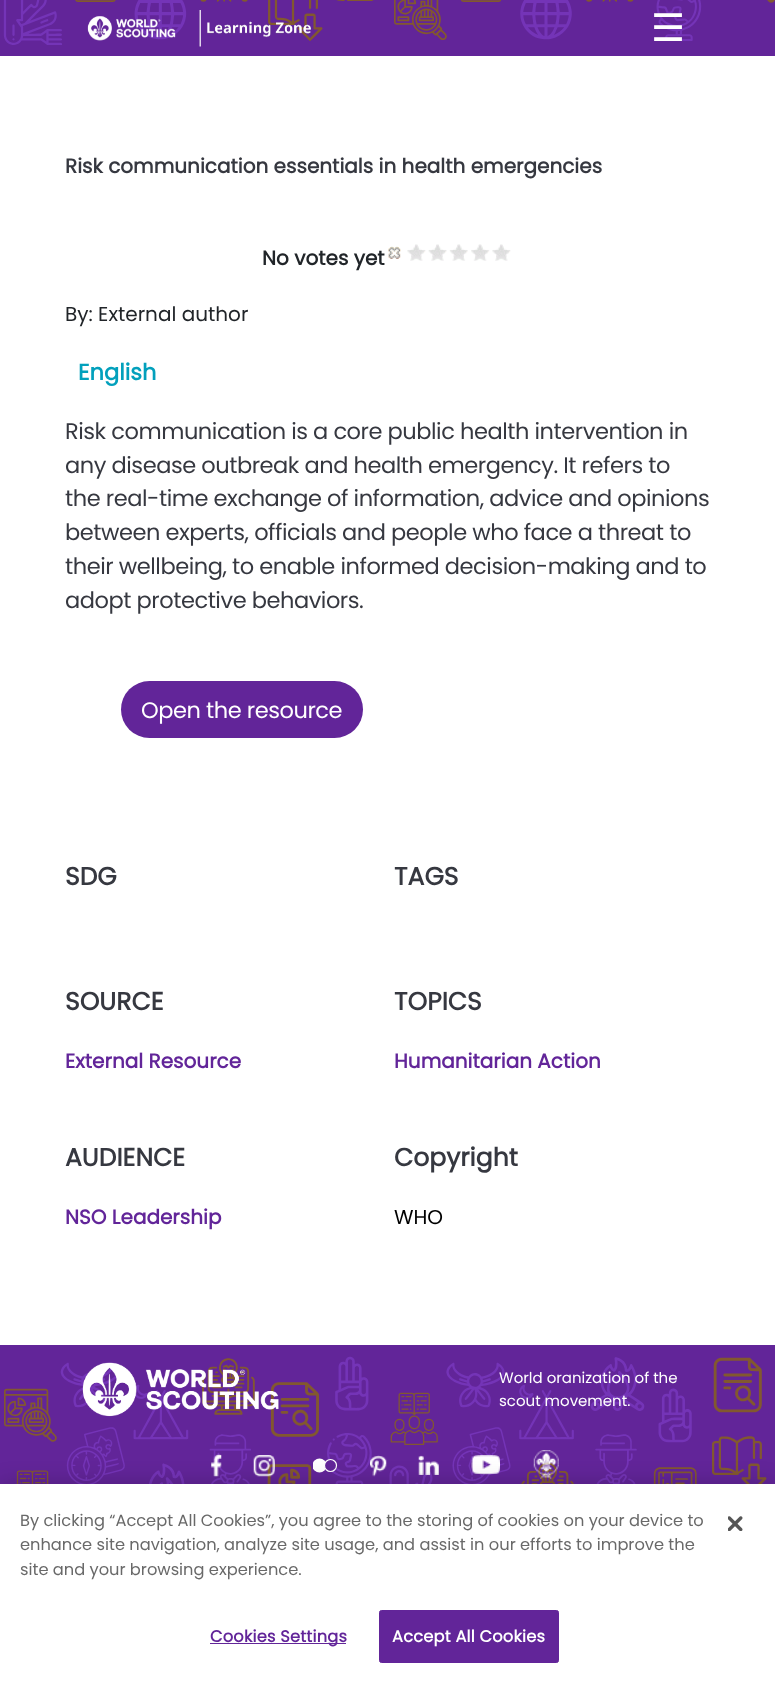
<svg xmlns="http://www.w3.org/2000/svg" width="775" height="1682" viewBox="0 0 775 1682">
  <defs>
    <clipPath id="clip1"><path d="M313 1458h25v15H313z"/></clipPath>
  </defs>
  <rect width="100%" height="100%" fill="#fff"/>
  <path d="M0 0h775v56H0z" fill="#622599"/>
  <image x="3" y="0" width="772" height="45" href="img/1.png"/>
  <image x="87" y="10" width="224" height="37" href="img/2.png"/>
  <image x="388" y="246" width="13" height="13" href="img/3.png"/>
  <image x="388" y="246" width="13" height="13" href="img/4.png"/>
  <image x="407" y="244" width="19" height="17" href="img/5.png"/>
  <image x="411" y="245" width="11" height="12" href="img/6.png"/>
  <image x="428" y="244" width="19" height="17" href="img/7.png"/>
  <image x="432" y="245" width="11" height="12" href="img/8.png"/>
  <image x="449" y="244" width="19" height="17" href="img/9.png"/>
  <image x="453" y="245" width="11" height="12" href="img/10.png"/>
  <image x="471" y="244" width="19" height="17" href="img/11.png"/>
  <image x="477" y="245" width="6" height="4" href="img/12.png"/>
  <image x="492" y="244" width="19" height="17" href="img/5.png"/>
  <image x="496" y="245" width="11" height="12" href="img/6.png"/>
  <rect x="121" y="681" width="242" height="57" rx="28.5" fill="#622599"/>
  <path d="M0 1345h775v139H0z" fill="#622599"/>
  <image x="3" y="1356" width="764" height="128" href="img/13.png"/>
  <image x="82" y="1362" width="197" height="55" href="img/14.png"/>
  <image x="211" y="1453" width="11" height="24" href="img/15.png"/>
  <image x="253" y="1455" width="22" height="22" href="img/16.png"/>
  <g clip-path="url(#clip1)">
    <circle cx="319.5" cy="1465.5" r="7" fill="#fff"/>
  </g>
  <circle cx="330.5" cy="1465.5" r="6" fill="#622599" stroke="#fff" stroke-width="1.2"/>
  <image x="370" y="1455" width="17" height="22" href="img/17.png"/>
  <image x="418" y="1455" width="21" height="20" href="img/18.png"/>
  <image x="471" y="1455" width="29" height="20" href="img/19.png"/>
  <image x="533" y="1450" width="26" height="29" href="img/20.png"/>
  <path d="M0 1484h775v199H0z" fill="#00000033" filter="blur(11px)"/>
  <path d="M0 1484h775v198H0z" fill="#fff"/>
  <path d="M210 1643h136v1H210z" fill="#622599"/>
  <rect x="379.5" y="1610.5" width="179" height="52" rx="2" fill="#622599" stroke="#622599"/>
  <image x="728" y="1516" width="15" height="15" href="img/21.png"/>
  <text x="651" y="41" font-family="DejaVu Sans" font-size="38" fill="#fff">☰</text>
  <text x="65" y="173" font-family="Poppins" font-size="20" font-weight="bold" fill="#363840">Risk communication essentials in health emergencies</text>
  <text x="262" y="265" font-family="Poppins" font-size="20" font-weight="bold" fill="#212529">No votes yet</text>
  <text x="65" y="321" font-family="Poppins" font-size="20" fill="#212529">By: External author</text>
  <text x="78" y="380" font-family="Poppins" font-size="22.5" font-weight="bold" fill="#02a0bc">English</text>
  <g font-family="Poppins" font-size="22.5" letter-spacing="-0.45" fill="#363840">
    <text x="65" y="439">Risk communication is a core public health intervention in</text>
    <text x="65" y="473">any disease outbreak and health emergency. It refers to</text>
    <text x="65" y="506">the real-time exchange of information, advice and opinions</text>
    <text x="65" y="540">between experts, officials and people who face a threat to</text>
    <text x="65" y="574">their wellbeing, to enable informed decision-making and to</text>
    <text x="65" y="608">adopt protective behaviors.</text>
  </g>
  <text x="141" y="718" font-family="Poppins" font-size="22.5" letter-spacing="-0.45" fill="#fff">Open the resource</text>
  <g font-family="Poppins" font-size="25" font-weight="bold" fill="#363840">
    <text x="65" y="885">SDG</text>
    <text x="394" y="885">TAGS</text>
    <text x="65" y="1010">SOURCE</text>
  </g>
  <text x="65" y="1068" font-family="Poppins" font-size="20" font-weight="bold" fill="#622599">External Resource</text>
  <text x="394" y="1010" font-family="Poppins" font-size="25" font-weight="bold" fill="#363840">TOPICS</text>
  <text x="394" y="1068" font-family="Poppins" font-size="20" font-weight="bold" fill="#622599">Humanitarian Action</text>
  <text x="65" y="1166" font-family="Poppins" font-size="25" font-weight="bold" fill="#363840">AUDIENCE</text>
  <text x="65" y="1224" font-family="Poppins" font-size="20" font-weight="bold" fill="#622599">NSO Leadership</text>
  <text x="394" y="1166" font-family="Poppins" font-size="25" font-weight="bold" fill="#363840">Copyright</text>
  <text x="394" y="1224" font-family="Poppins" font-size="20" fill="#000">WHO</text>
  <g font-family="Poppins" font-size="15" fill="#fff">
    <text x="499" y="1383">World oranization of the</text>
    <text x="499" y="1406">scout movement.</text>
  </g>
  <g font-family="Poppins" font-size="16.25" fill="#696969">
    <text x="20" y="1526">By clicking “Accept All Cookies”, you agree to the storing of cookies on your device to</text>
    <text x="20" y="1550">enhance site navigation, analyze site usage, and assist in our efforts to improve the</text>
    <text x="20" y="1575">site and your browsing experience.</text>
  </g>
  <text x="210" y="1642" font-family="Poppins" font-size="16.25" font-weight="bold" letter-spacing="0.2" fill="#622599">Cookies Settings</text>
  <text x="392" y="1642" font-family="Poppins" font-size="16.25" font-weight="bold" letter-spacing="0.2" fill="#fff">Accept All Cookies</text>
</svg>
